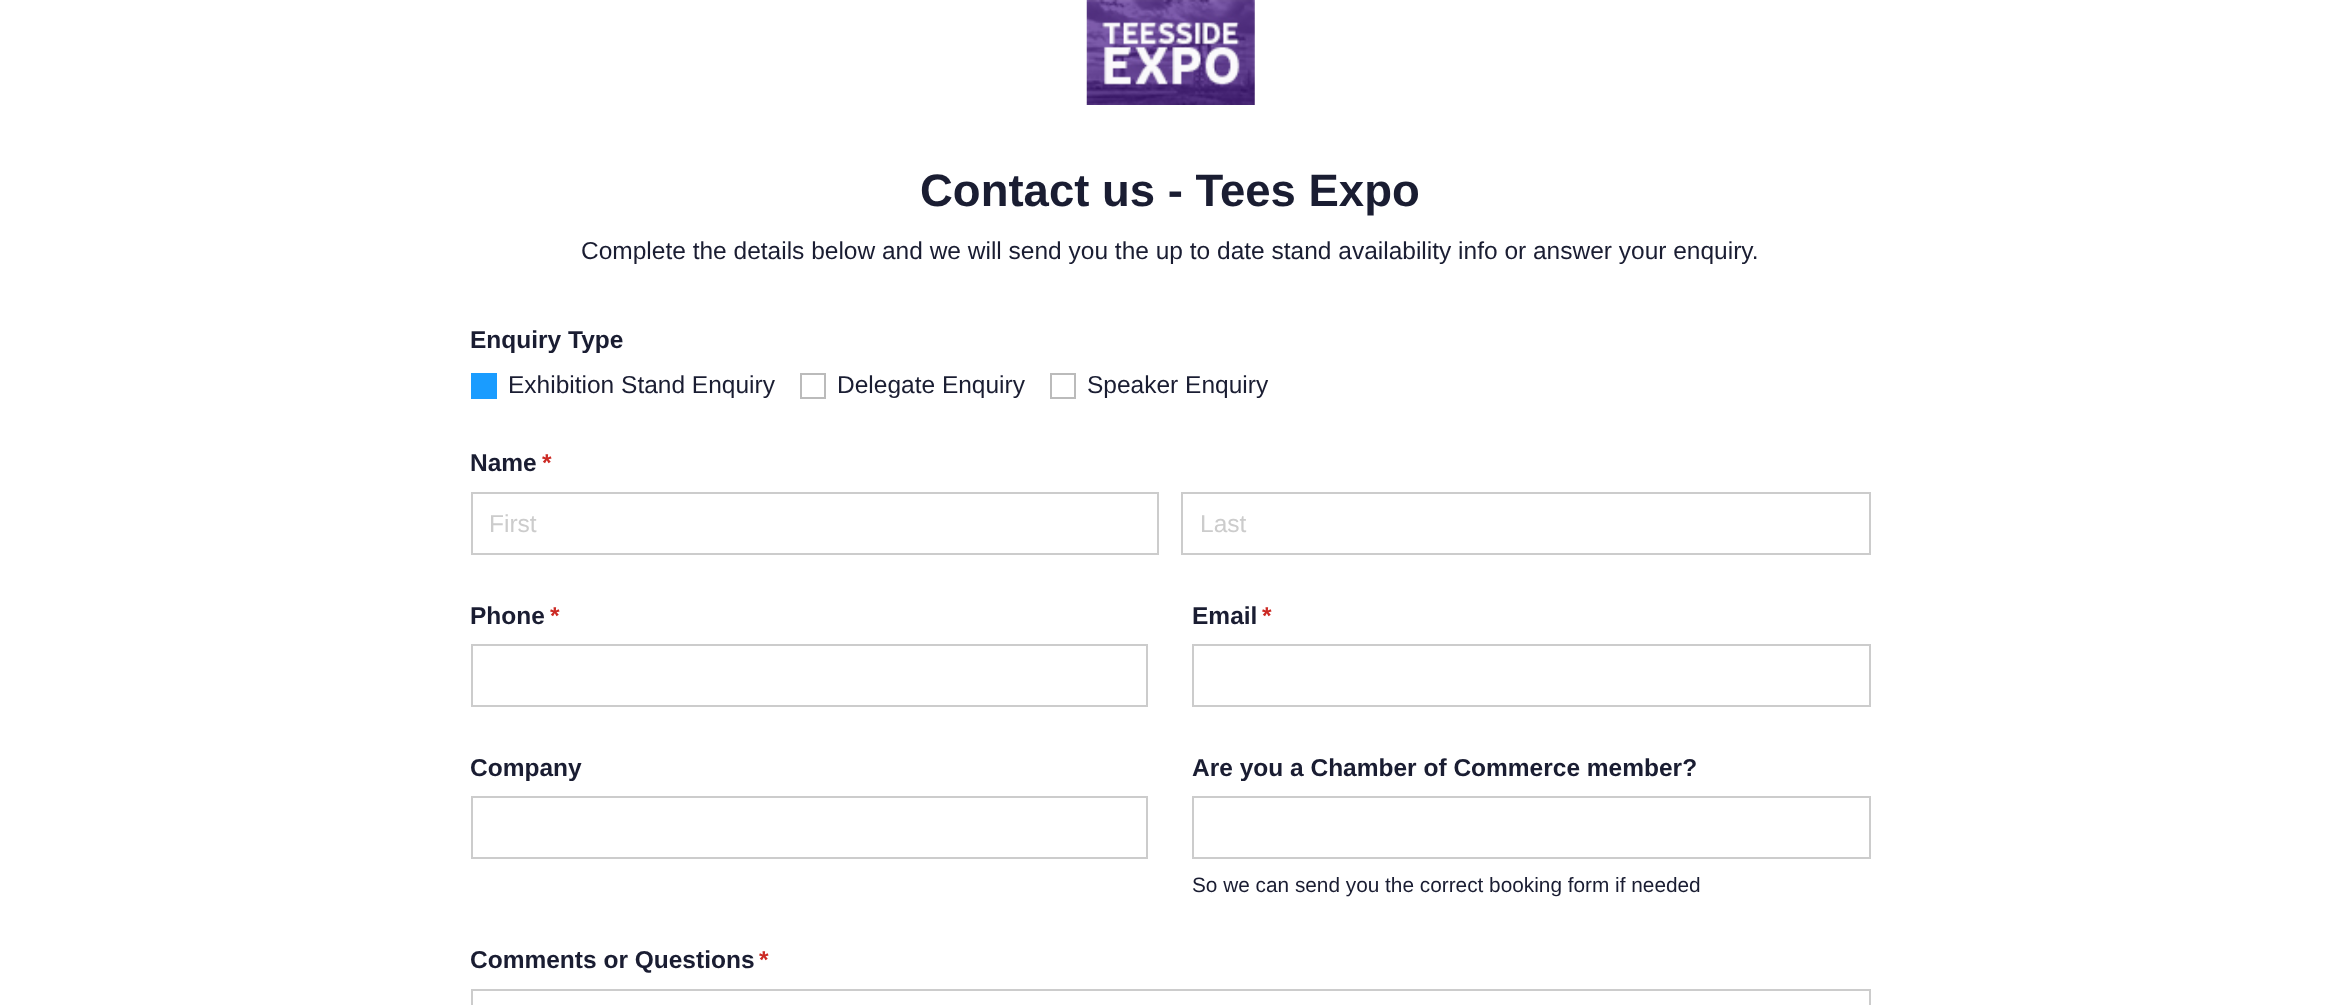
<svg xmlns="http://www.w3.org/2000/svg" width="2339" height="1005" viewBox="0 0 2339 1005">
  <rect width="100%" height="100%" fill="#fff"/>
  <image x="1086" y="0" width="169" height="105" href="img/1.png"/>
  <path d="M471 373h26v26H471z" fill="#1a9cff"/>
  <path d="M801 374h24v24H801z" fill="none" stroke="#bbb" stroke-width="2"/>
  <path d="M1051 374h24v24H1051z" fill="none" stroke="#bbb" stroke-width="2"/>
  <path d="M472 493h686v61H472z" fill="none" stroke="#ccc" stroke-width="2"/>
  <path d="M1182 493h688v61H1182z" fill="none" stroke="#ccc" stroke-width="2"/>
  <path d="M472 645h675v61H472z" fill="none" stroke="#ccc" stroke-width="2"/>
  <path d="M1193 645h677v61H1193z" fill="none" stroke="#ccc" stroke-width="2"/>
  <path d="M472 797h675v61H472z" fill="none" stroke="#ccc" stroke-width="2"/>
  <path d="M1193 797h677v61H1193z" fill="none" stroke="#ccc" stroke-width="2"/>
  <path d="M472 990h1398v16H472z" fill="none" stroke="#ccc" stroke-width="2"/>
  <text x="920" y="206" font-family="Liberation Sans" font-size="45.5" font-weight="bold" fill="#1a1d32">Contact us - Tees Expo</text>
  <text x="581" y="259" font-family="Liberation Sans" font-size="24.5" fill="#1a1d32">Complete the details below and we will send you the up to date stand availability info or answer your enquiry.</text>
  <text x="470" y="348" font-family="Liberation Sans" font-size="24.5" font-weight="bold" fill="#1a1d32">Enquiry Type</text>
  <g font-family="Liberation Sans" font-size="24.5" fill="#1a1d32">
    <text x="508" y="393">Exhibition Stand Enquiry</text>
    <text x="837" y="393">Delegate Enquiry</text>
    <text x="1087" y="393">Speaker Enquiry</text>
  </g>
  <text x="470" y="471" font-family="Liberation Sans" font-size="24.5" font-weight="bold" fill="#1a1d32">Name</text>
  <text x="542" y="471" font-family="Liberation Sans" font-size="24.5" font-weight="bold" fill="#cc2a24">*</text>
  <g font-family="Liberation Sans" font-size="24.5" fill="#ccc">
    <text x="489" y="532">First</text>
    <text x="1200" y="532">Last</text>
  </g>
  <text x="470" y="624" font-family="Liberation Sans" font-size="24.5" font-weight="bold" fill="#1a1d32">Phone</text>
  <text x="550" y="624" font-family="Liberation Sans" font-size="24.5" font-weight="bold" fill="#cc2a24">*</text>
  <text x="1192" y="624" font-family="Liberation Sans" font-size="24.5" font-weight="bold" fill="#1a1d32">Email</text>
  <text x="1262" y="624" font-family="Liberation Sans" font-size="24.5" font-weight="bold" fill="#cc2a24">*</text>
  <g font-family="Liberation Sans" font-size="24.5" font-weight="bold" fill="#1a1d32">
    <text x="470" y="776">Company</text>
    <text x="1192" y="776">Are you a Chamber of Commerce member?</text>
  </g>
  <text x="1192" y="892" font-family="Liberation Sans" font-size="20.8" fill="#1a1d32">So we can send you the correct booking form if needed</text>
  <text x="470" y="968" font-family="Liberation Sans" font-size="24.5" font-weight="bold" fill="#1a1d32">Comments or Questions</text>
  <text x="759" y="968" font-family="Liberation Sans" font-size="24.5" font-weight="bold" fill="#cc2a24">*</text>
</svg>
